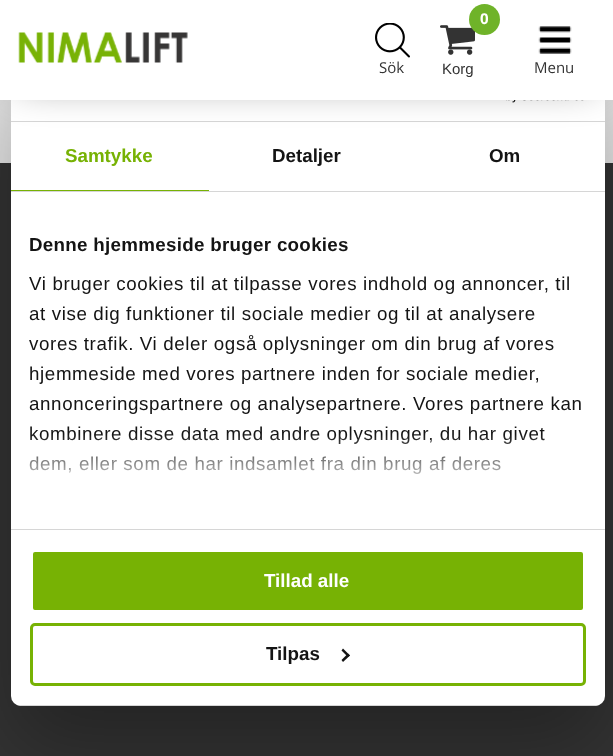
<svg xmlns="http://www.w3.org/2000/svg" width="613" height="756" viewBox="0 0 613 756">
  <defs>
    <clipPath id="clip1"><rect x="11" y="53" width="594" height="653" rx="10"/></clipPath>
    <linearGradient id="g1" gradientUnits="userSpaceOnUse" x1="299" y1="528" x2="299" y2="434"><stop offset="0" stop-color="#fff"/><stop offset="0.5" stop-color="#fff" stop-opacity="0.8"/><stop offset="1" stop-color="#fff" stop-opacity="0"/></linearGradient>
  </defs>
  <rect width="100%" height="100%" fill="#333"/>
  <path d="M0 100h613v63H0z" fill="#e6e6e6"/>
  <rect x="11" y="93" width="594" height="653" rx="10" fill="#0000004d" filter="blur(42.5px)"/>
  <rect x="11" y="53" width="594" height="653" rx="10" fill="#fff"/>
  <path d="M11 121h594v1H11z" fill="#d6d6d6"/>
  <image x="506" y="100" width="78" height="3" href="img/5.png"/>
  <path d="M19 21h576v63H19z" fill="#00000073" filter="blur(19px)"/>
  <path d="M0 0h613v100H0z" fill="#fff"/>
  <image x="18" y="32" width="170" height="31" href="img/1.png"/>
  <image x="440" y="25" width="35" height="30" href="img/2.png"/>
  <circle cx="484.5" cy="19.5" r="15.5" fill="#6fb329"/>
  <image x="375" y="23" width="35" height="35" href="img/3.png"/>
  <image x="538" y="26" width="34" height="28" href="img/4.png"/>
  <path d="M11 191h594v1H11z" fill="#d6d6d6"/>
  <path d="M11 190h198v1H11z" fill="#77b204"/>
  <path d="M11 529h594v1H11z" fill="#d6d6d6"/>
  <g clip-path="url(#clip1)">
    <path d="M11 705h594v1H11z" fill="#d6d6d6"/>
  </g>
  <rect x="31.5" y="550.5" width="553" height="61" rx="3.5" fill="#77b204" stroke="#fff" stroke-width="3"/>
  <rect x="31.5" y="624.5" width="553" height="60" rx="3.5" fill="none" stroke="#77b204" stroke-width="3"/>
  <path d="M343 648.5L350 655.5L348 657L341.5 650.5Z" fill="#141414"/>
  <path d="M348 653.5L350 655.5L343 662L341.5 660Z" fill="#141414"/>
  <text x="480" y="24" font-family="Open Sans" font-size="15" font-weight="bold" fill="#fff">0</text>
  <text x="442" y="74" font-family="Liberation Sans" font-size="15" fill="#333">Korg</text>
  <g font-family="Open Sans" font-size="15" fill="#333">
    <text x="379" y="73">Sök</text>
    <text x="534" y="73">Menu</text>
  </g>
  <text x="65" y="162" font-family="Liberation Sans" font-size="18.75" font-weight="bold" fill="#77b204">Samtykke</text>
  <g font-family="Liberation Sans" font-size="18.75" font-weight="bold" fill="#141414">
    <text x="272" y="162">Detaljer</text>
    <text x="489" y="162">Om</text>
  </g>
  <text x="29" y="251" font-family="Liberation Sans" font-size="18.75" font-weight="bold" letter-spacing="0.3" fill="#141414">Denne hjemmeside bruger cookies</text>
  <g font-family="Liberation Sans" font-size="18.75" letter-spacing="0.62" fill="#141414">
    <text x="29" y="290">Vi bruger cookies til at tilpasse vores indhold og annoncer, til</text>
    <text x="29" y="320">at vise dig funktioner til sociale medier og til at analysere</text>
    <text x="29" y="350">vores trafik. Vi deler også oplysninger om din brug af vores</text>
    <text x="29" y="380">hjemmeside med vores partnere inden for sociale medier,</text>
    <text x="29" y="410">annonceringspartnere og analysepartnere. Vores partnere kan</text>
    <text x="29" y="440">kombinere disse data med andre oplysninger, du har givet</text>
    <text x="29" y="470">dem, eller som de har indsamlet fra din brug af deres</text>
  </g>
  <path d="M29 435h516v39H29z" fill="url(#g1)"/>
  <text x="264" y="587" font-family="Liberation Sans" font-size="18.75" font-weight="bold" fill="#fff">Tillad alle</text>
  <text x="266" y="660" font-family="Liberation Sans" font-size="18.75" font-weight="bold" fill="#141414">Tilpas</text>
</svg>
